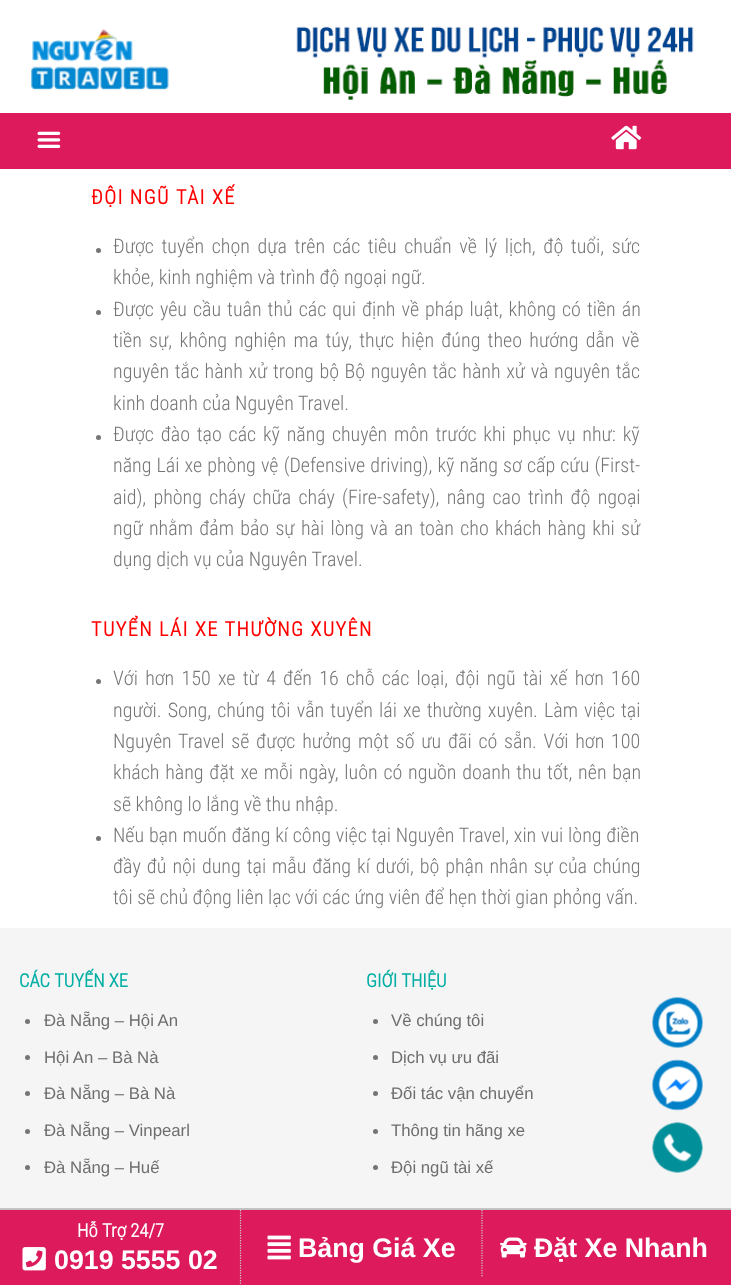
<svg xmlns="http://www.w3.org/2000/svg" width="731" height="1285" viewBox="0 0 731 1285">
  <rect width="100%" height="100%" fill="#fff"/>
  <image x="30" y="28" width="139" height="63" href="img/1.png"/>
  <image x="296" y="26" width="398" height="74" href="img/2.png"/>
  <path d="M0 113h731v56H0z" fill="#dd1a5b"/>
  <image x="37" y="131" width="24" height="17" href="img/3.png"/>
  <image x="611" y="125" width="31" height="25" href="img/4.png"/>
  <circle cx="98.5" cy="250.5" r="2.5" fill="#757575"/>
  <circle cx="98.5" cy="312.5" r="2.5" fill="#757575"/>
  <circle cx="98.5" cy="437.5" r="2.5" fill="#757575"/>
  <circle cx="98.5" cy="681.5" r="2.5" fill="#757575"/>
  <circle cx="98.5" cy="838.5" r="2.5" fill="#757575"/>
  <path d="M0 928h731v280H0z" fill="#f5f5f5"/>
  <circle cx="27.5" cy="1021.5" r="2.5" fill="#757575"/>
  <circle cx="27.5" cy="1057.5" r="2.5" fill="#757575"/>
  <circle cx="27.5" cy="1093.5" r="2.5" fill="#757575"/>
  <circle cx="27.5" cy="1131.5" r="2.5" fill="#757575"/>
  <circle cx="27.5" cy="1167.5" r="2.5" fill="#757575"/>
  <circle cx="375.5" cy="1021.5" r="2.5" fill="#757575"/>
  <circle cx="375.5" cy="1057.5" r="2.5" fill="#757575"/>
  <circle cx="375.5" cy="1093.5" r="2.5" fill="#757575"/>
  <circle cx="375.5" cy="1131.5" r="2.5" fill="#757575"/>
  <circle cx="375.5" cy="1167.5" r="2.5" fill="#757575"/>
  <image x="652" y="997" width="51" height="51" href="img/5.png"/>
  <image x="652" y="1059" width="51" height="52" href="img/6.png"/>
  <image x="652" y="1122" width="51" height="51" href="img/7.png"/>
  <path d="M0 1208h731v1H0z" fill="#c4c4c4"/>
  <path d="M0 1210h731v75H0z" fill="#dd1a5b"/>
  <path d="M0 1209h731v1H0z" fill="#c0c0c0"/>
  <path d="M240.5 1210V1285" fill="none" stroke="#ccc" stroke-width="1.2" stroke-dasharray="1.25 1.25"/>
  <image x="22" y="1247" width="24" height="24" href="img/8.png"/>
  <path d="M482 1210V1277.5" fill="none" stroke="#ccc" stroke-width="1.2" stroke-dasharray="1.25 1.25"/>
  <image x="267" y="1235" width="24" height="25" href="img/9.png"/>
  <image x="500" y="1237" width="27" height="21" href="img/10.png"/>
  <text x="91" y="204" font-family="Roboto Condensed" font-size="20" font-weight="bold" letter-spacing="1.5" fill="#f00">ĐỘI NGŨ TÀI XẾ</text>
  <g font-family="Roboto Condensed" font-size="20" font-weight="300" fill="#757575">
    <text x="113" y="253" word-spacing="3.1">Được tuyển chọn dựa trên các tiêu chuẩn về lý lịch, độ tuổi, sức</text>
    <text x="113" y="284">khỏe, kinh nghiệm và trình độ ngoại ngữ.</text>
    <text x="113" y="316" word-spacing="1.5">Được yêu cầu tuân thủ các qui định về pháp luật, không có tiền án</text>
    <text x="113" y="347" word-spacing="2.75">tiền sự, không nghiện ma túy, thực hiện đúng theo hướng dẫn về</text>
    <text x="113" y="378" word-spacing="1.1">nguyên tắc hành xử trong bộ Bộ nguyên tắc hành xử và nguyên tắc</text>
    <text x="113" y="410">kinh doanh của Nguyên Travel.</text>
    <text x="113" y="441" word-spacing="2.25">Được đào tạo các kỹ năng chuyên môn trước khi phục vụ như: kỹ</text>
    <text x="113" y="472" word-spacing="0.6">năng Lái xe phòng vệ (Defensive driving), kỹ năng sơ cấp cứu (First-</text>
    <text x="113" y="504" word-spacing="2.75">aid), phòng cháy chữa cháy (Fire-safety), nâng cao trình độ ngoại</text>
    <text x="113" y="535" word-spacing="1.75">ngữ nhằm đảm bảo sự hài lòng và an toàn cho khách hàng khi sử</text>
    <text x="113" y="566">dụng dịch vụ của Nguyên Travel.</text>
  </g>
  <text x="91" y="636" font-family="Roboto Condensed" font-size="20" font-weight="bold" letter-spacing="1.5" fill="#f00">TUYỂN LÁI XE THƯỜNG XUYÊN</text>
  <g font-family="Roboto Condensed" font-size="20" font-weight="300" fill="#757575">
    <text x="113" y="685" word-spacing="2.75">Với hơn 150 xe từ 4 đến 16 chỗ các loại, đội ngũ tài xế hơn 160</text>
    <text x="113" y="717" word-spacing="1.6">người. Song, chúng tôi vẫn tuyển lái xe thường xuyên. Làm việc tại</text>
    <text x="113" y="748" word-spacing="2.25">Nguyên Travel sẽ được hưởng một số ưu đãi có sẵn. Với hơn 100</text>
    <text x="113" y="779" word-spacing="1.25">khách hàng đặt xe mỗi ngày, luôn có nguồn doanh thu tốt, nên bạn</text>
    <text x="113" y="811">sẽ không lo lắng về thu nhập.</text>
    <text x="113" y="842" word-spacing="0.25">Nếu bạn muốn đăng kí công việc tại Nguyên Travel, xin vui lòng điền</text>
    <text x="113" y="873" word-spacing="1.4">đầy đủ nội dung tại mẫu đăng kí dưới, bộ phận nhân sự của chúng</text>
    <text x="113" y="904">tôi sẽ chủ động liên lạc với các ứng viên để hẹn thời gian phỏng vấn.</text>
  </g>
  <text x="19" y="987" font-family="Roboto Condensed" font-size="18.5" font-weight="bold" fill="#00aea4">CÁC TUYẾN XE</text>
  <g font-family="Liberation Sans" font-size="16.75" fill="#6f6e6e">
    <text x="44" y="1026">Đà Nẵng – Hội An</text>
    <text x="44" y="1063">Hội An – Bà Nà</text>
    <text x="44" y="1099">Đà Nẵng – Bà Nà</text>
    <text x="44" y="1136">Đà Nẵng – Vinpearl</text>
    <text x="44" y="1173">Đà Nẵng – Huế</text>
  </g>
  <text x="366" y="987" font-family="Roboto Condensed" font-size="18.5" font-weight="bold" fill="#00aea4">GIỚI THIỆU</text>
  <g font-family="Liberation Sans" font-size="16.75" fill="#6f6e6e">
    <text x="391" y="1026">Về chúng tôi</text>
    <text x="391" y="1063">Dịch vụ ưu đãi</text>
    <text x="391" y="1099">Đối tác vận chuyển</text>
    <text x="391" y="1136">Thông tin hãng xe</text>
    <text x="391" y="1173">Đội ngũ tài xế</text>
  </g>
  <text x="77" y="1237" font-family="Roboto Condensed" font-size="18.75" font-weight="bold" fill="#fff">Hỗ Trợ 24/7</text>
  <g font-family="Liberation Sans" font-size="26.75" font-weight="bold" fill="#fff">
    <text x="54" y="1269">0919 5555 02</text>
    <text x="298" y="1257">Bảng Giá Xe</text>
    <text x="534" y="1257">Đặt Xe Nhanh</text>
  </g>
</svg>
